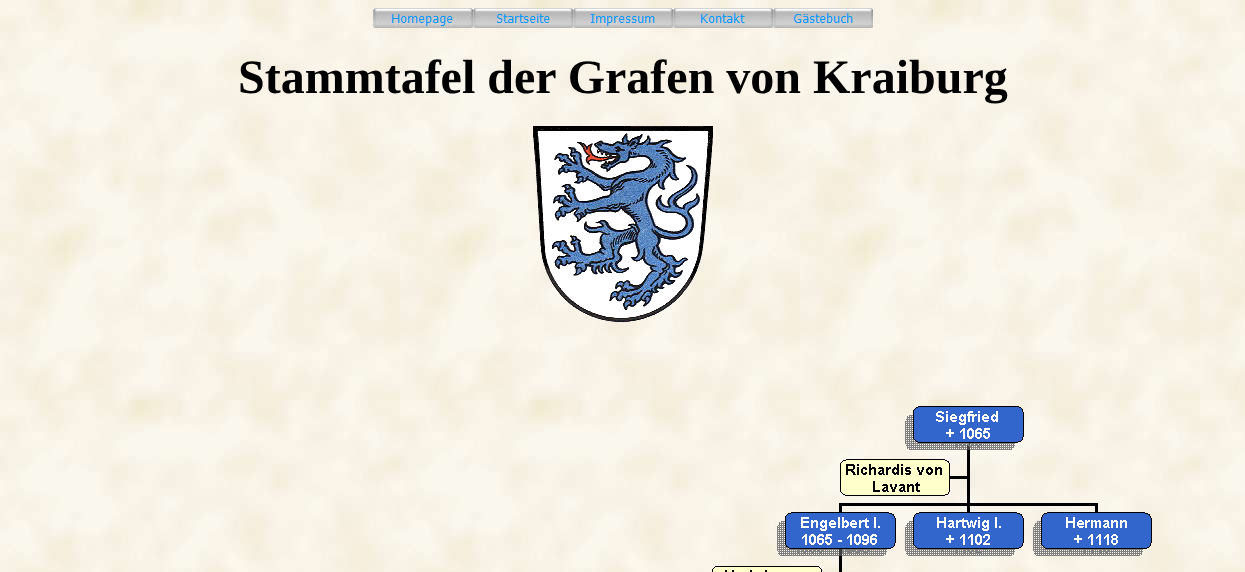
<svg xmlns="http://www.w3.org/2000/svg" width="1245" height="572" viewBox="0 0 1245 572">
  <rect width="100%" height="100%" fill="#fff"/>
  <image x="0" y="0" width="1245" height="572" href="img/1.png"/>
  <image x="373" y="8" width="100" height="20" href="img/2.png"/>
  <image x="473" y="8" width="100" height="20" href="img/3.png"/>
  <image x="573" y="8" width="100" height="20" href="img/4.png"/>
  <image x="673" y="8" width="100" height="20" href="img/5.png"/>
  <image x="773" y="8" width="100" height="20" href="img/6.png"/>
  <image x="533" y="126" width="180" height="196" href="img/7.png"/>
  <image x="712" y="406" width="440" height="166" href="img/8.png"/>
  <text x="238" y="93" font-family="Liberation Serif" font-size="48" font-weight="bold" fill="#000">Stammtafel der Grafen von Kraiburg</text>
</svg>
